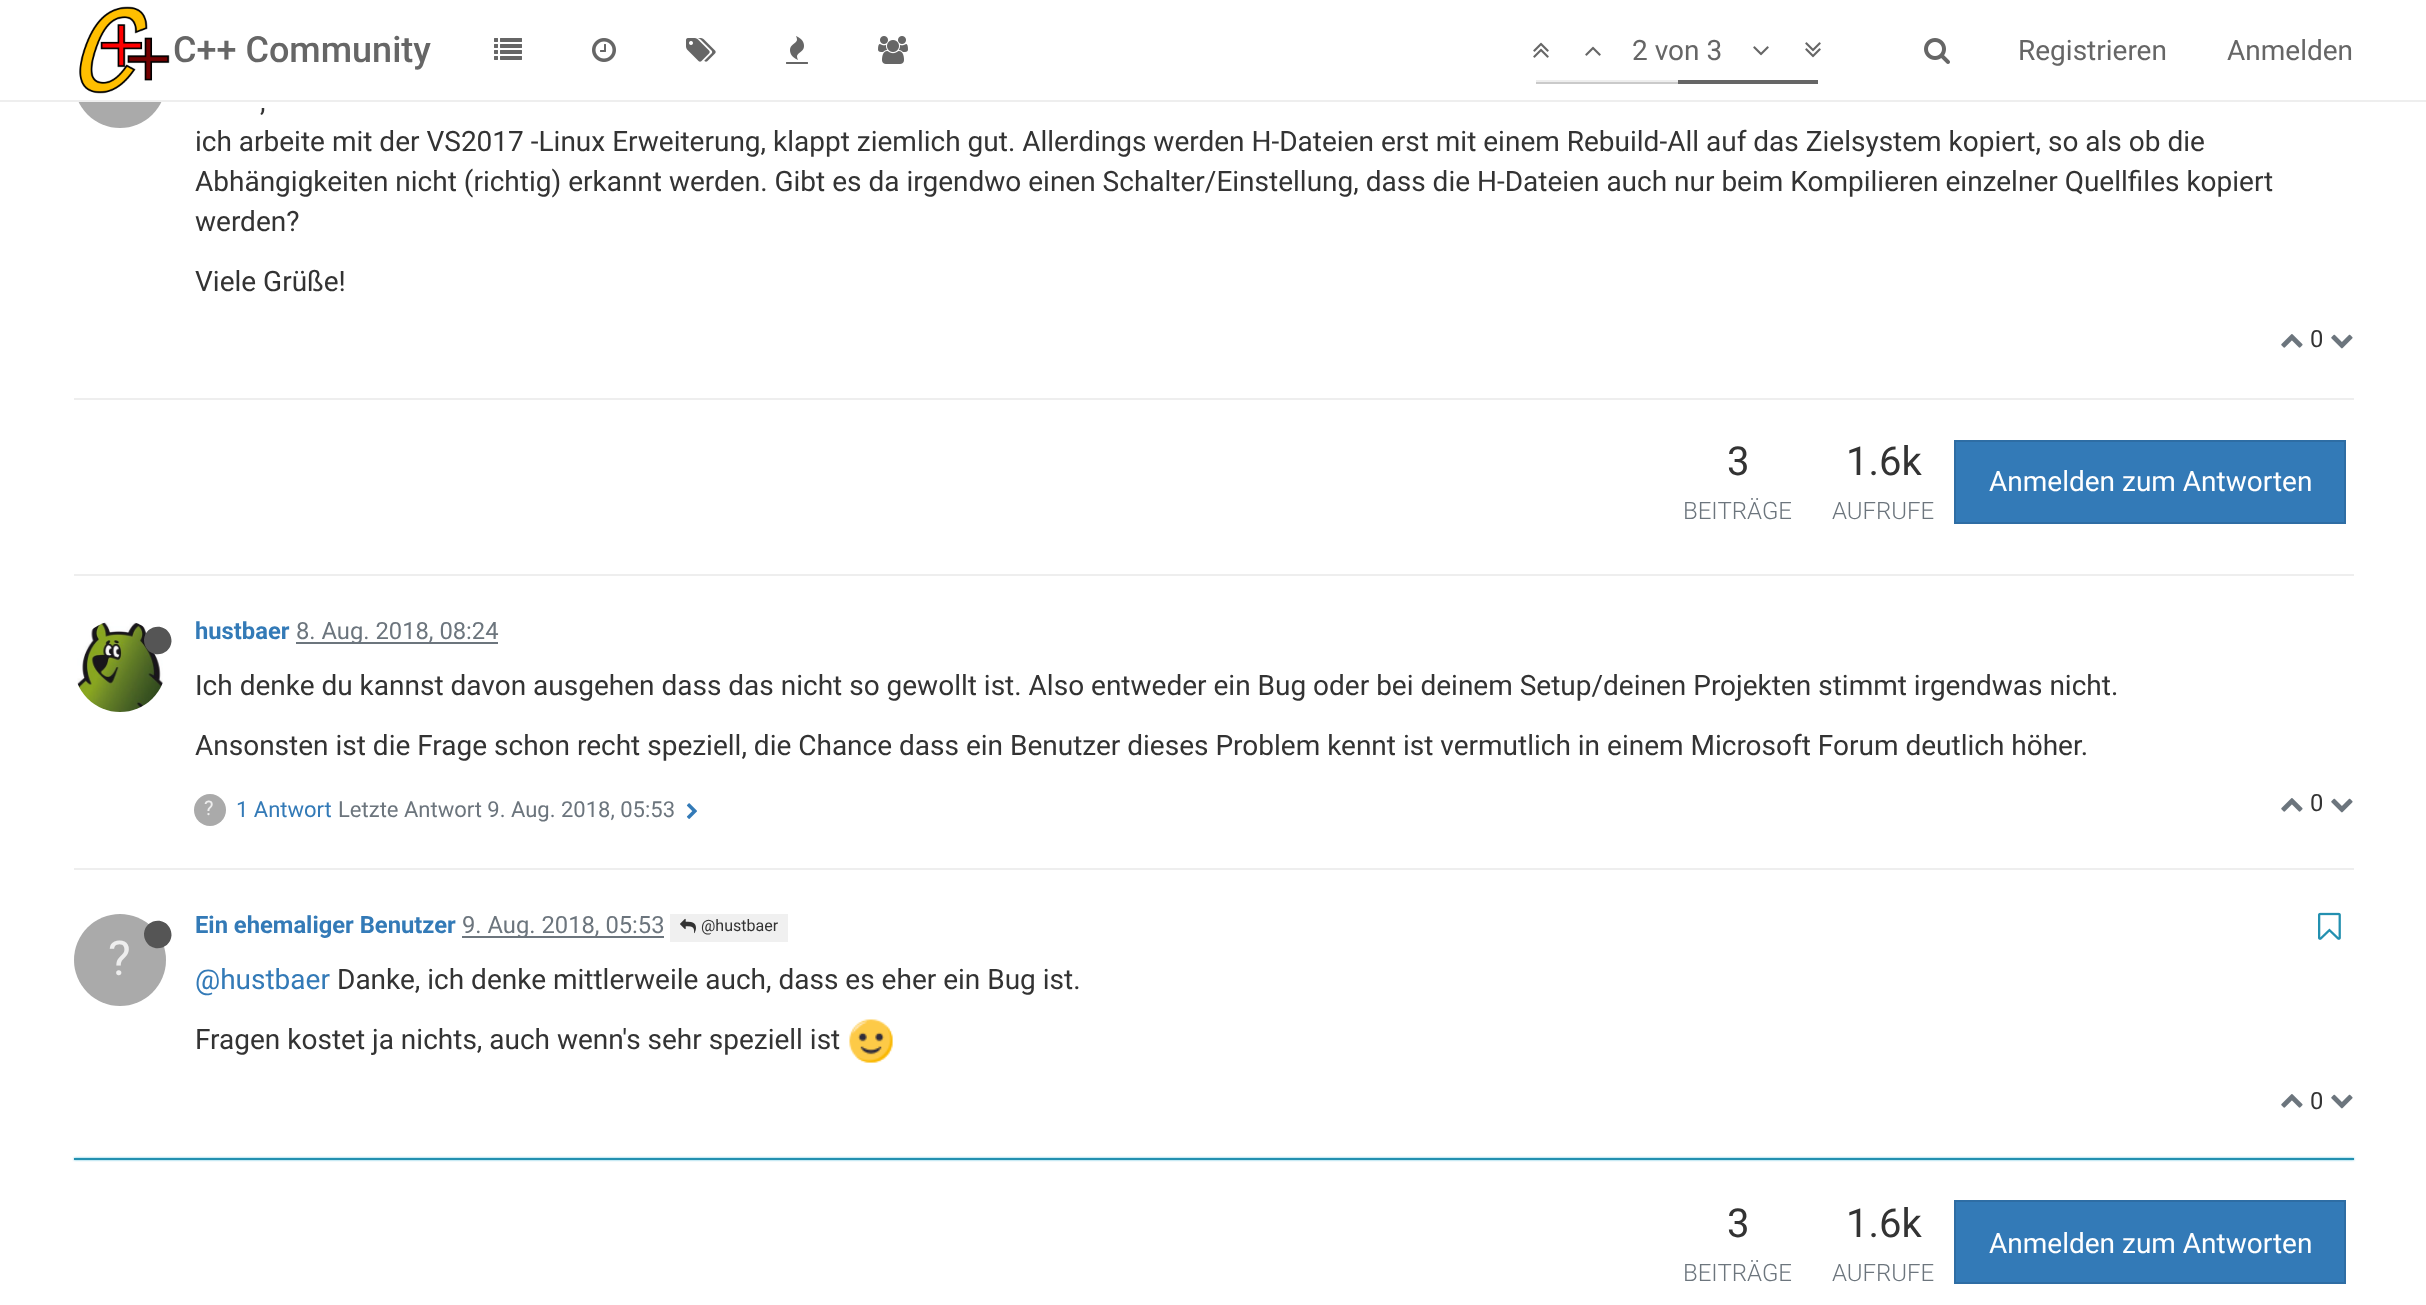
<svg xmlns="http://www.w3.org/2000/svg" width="2426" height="1305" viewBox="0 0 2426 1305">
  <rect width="100%" height="100%" fill="#fff"/>
  <circle cx="120" cy="82" r="46" fill="#aaa"/>
  <path d="M74 36h92v64H74z" fill="#fff"/>
  <path d="M0 100h2426v2H0z" fill="#eee"/>
  <image x="79" y="6" width="91" height="88" href="img/1.png"/>
  <image x="494" y="38" width="28" height="22" href="img/2.png"/>
  <image x="592" y="38" width="24" height="24" href="img/3.png"/>
  <image x="686" y="38" width="30" height="24" href="img/4.png"/>
  <image x="786" y="36" width="22" height="28" href="img/5.png"/>
  <image x="878" y="36" width="30" height="28" href="img/6.png"/>
  <image x="1533" y="42" width="16" height="16" href="img/7.png"/>
  <image x="1585" y="46" width="16" height="10" href="img/8.png"/>
  <image x="1753" y="46" width="16" height="10" href="img/9.png"/>
  <image x="1805" y="42" width="16" height="16" href="img/10.png"/>
  <path d="M1678 80h140v4H1678z" fill="#666"/>
  <path d="M1536 80h142v2H1536z" fill="#eee"/>
  <path d="M1536 82h142v2H1536z" fill="#cacaca"/>
  <image x="1924" y="38" width="26" height="26" href="img/11.png"/>
  <image x="2281" y="334" width="22" height="14" href="img/12.png"/>
  <image x="2331" y="334" width="22" height="15" href="img/13.png"/>
  <path d="M74 398h2280v2H74z" fill="#eee"/>
  <path d="M1955 441h390v82H1955z" fill="#337ab7" stroke="#2e6da4" stroke-width="2"/>
  <path d="M74 574h2280v2H74z" fill="#eee"/>
  <image x="77" y="622" width="86" height="90" href="img/14.png"/>
  <path d="M169.5 633.5C171 636 171.5 639 171.5 641.5C170.5 655 152.5 659 146 647.5C144.5 645 144 642.5 144 639.5C145 626 163 622 169.5 633.5Z" fill="#555"/>
  <path d="M296 642h202v2H296z" fill="#6c757d"/>
  <circle cx="210" cy="810" r="16" fill="#aaa"/>
  <image x="686" y="803" width="11" height="16" href="img/15.png"/>
  <image x="2281" y="798" width="22" height="14" href="img/12.png"/>
  <image x="2331" y="798" width="22" height="15" href="img/13.png"/>
  <path d="M74 868h2280v2H74z" fill="#eee"/>
  <path d="M462 936h202v2H462z" fill="#6c757d"/>
  <path d="M670 914h118v28H670z" fill="#f0f0f0"/>
  <image x="680" y="918" width="16" height="16" href="img/16.png"/>
  <image x="2318" y="912" width="23" height="28" href="img/17.png"/>
  <circle cx="120" cy="960" r="46" fill="#aaa"/>
  <path d="M169.5 927.5C171 930 171.5 933 171.5 935.5C170.5 949 152.5 953 146 941.5C144.5 939 144 936.5 144 933.5C145 920 163 916 169.5 927.5Z" fill="#555"/>
  <image x="849" y="1019" width="44" height="44" href="img/18.png"/>
  <image x="2281" y="1094" width="22" height="14" href="img/12.png"/>
  <image x="2331" y="1094" width="22" height="15" href="img/13.png"/>
  <path d="M74 1158h2280v2H74z" fill="#5bc0de" filter="blur(1px)"/>
  <path d="M74 1158h2280v2H74z" fill="#2390b0"/>
  <path d="M1955 1201h390v82H1955z" fill="#337ab7" stroke="#2e6da4" stroke-width="2"/>
  <text x="173" y="62" font-family="Roboto" font-size="36" font-weight="500" fill="#666">C++ Community</text>
  <g font-family="Roboto" font-size="28" fill="#666">
    <text x="1632" y="60">2 von 3</text>
    <text x="2018" y="60">Registrieren</text>
    <text x="2227" y="60">Anmelden</text>
  </g>
  <g font-family="Roboto" font-size="28" fill="#333">
    <text x="260" y="111">,</text>
    <text x="195" y="151">ich arbeite mit der VS2017 -Linux Erweiterung, klappt ziemlich gut. Allerdings werden H-Dateien erst mit einem Rebuild-All auf das Zielsystem kopiert, so als ob die</text>
    <text x="195" y="191">Abhängigkeiten nicht (richtig) erkannt werden. Gibt es da irgendwo einen Schalter/Einstellung, dass die H-Dateien auch nur beim Kompilieren einzelner Quellfiles kopiert</text>
    <text x="195" y="231">werden?</text>
    <text x="195" y="291">Viele Grüße!</text>
  </g>
  <text x="2310" y="347" font-family="Roboto" font-size="23.75" fill="#333">0</text>
  <text x="1727" y="475" font-family="Roboto" font-size="40" fill="#333">3</text>
  <text x="1683" y="519" font-family="Roboto" font-size="24" font-weight="300" fill="#6c757d">BEITRÄGE</text>
  <text x="1846" y="475" font-family="Roboto" font-size="40" fill="#333">1.6k</text>
  <text x="1832" y="519" font-family="Roboto" font-size="24" font-weight="300" fill="#6c757d">AUFRUFE</text>
  <text x="1989" y="491" font-family="Roboto" font-size="28" fill="#fff">Anmelden zum Antworten</text>
  <text x="195" y="639" font-family="Roboto" font-size="23.75" font-weight="bold" fill="#337ab7">hustbaer</text>
  <text x="296" y="639" font-family="Roboto" font-size="23.75" fill="#6c757d">8. Aug. 2018, 08:24</text>
  <g font-family="Roboto" font-size="28" fill="#333">
    <text x="195" y="695">Ich denke du kannst davon ausgehen dass das nicht so gewollt ist. Also entweder ein Bug oder bei deinem Setup/deinen Projekten stimmt irgendwas nicht.</text>
    <text x="195" y="755">Ansonsten ist die Frage schon recht speziell, die Chance dass ein Benutzer dieses Problem kennt ist vermutlich in einem Microsoft Forum deutlich höher.</text>
  </g>
  <text x="204" y="815" font-family="Roboto" font-size="20" fill="#eee">?</text>
  <text x="236" y="817" font-family="Roboto" font-size="22" fill="#337ab7">1 Antwort</text>
  <text x="338" y="817" font-family="Roboto" font-size="22" fill="#6c757d">Letzte Antwort 9. Aug. 2018, 05:53</text>
  <text x="2310" y="811" font-family="Roboto" font-size="23.75" fill="#333">0</text>
  <text x="195" y="933" font-family="Roboto" font-size="23.75" font-weight="bold" fill="#337ab7">Ein ehemaliger Benutzer</text>
  <text x="462" y="933" font-family="Roboto" font-size="23.75" fill="#6c757d">9. Aug. 2018, 05:53</text>
  <text x="701" y="931" font-family="Roboto" font-size="16" fill="#333">@hustbaer</text>
  <text x="108" y="975" font-family="Roboto" font-size="48" fill="#eee">?</text>
  <text x="195" y="989" font-family="Roboto" font-size="28" fill="#337ab7">@hustbaer</text>
  <g font-family="Roboto" font-size="28" fill="#333">
    <text x="337" y="989">Danke, ich denke mittlerweile auch, dass es eher ein Bug ist.</text>
    <text x="195" y="1049">Fragen kostet ja nichts, auch wenn's sehr speziell ist</text>
  </g>
  <text x="2310" y="1109" font-family="Roboto" font-size="23.75" fill="#333">0</text>
  <text x="1727" y="1237" font-family="Roboto" font-size="40" fill="#333">3</text>
  <text x="1683" y="1281" font-family="Roboto" font-size="24" font-weight="300" fill="#6c757d">BEITRÄGE</text>
  <text x="1846" y="1237" font-family="Roboto" font-size="40" fill="#333">1.6k</text>
  <text x="1832" y="1281" font-family="Roboto" font-size="24" font-weight="300" fill="#6c757d">AUFRUFE</text>
  <text x="1989" y="1253" font-family="Roboto" font-size="28" fill="#fff">Anmelden zum Antworten</text>
</svg>
